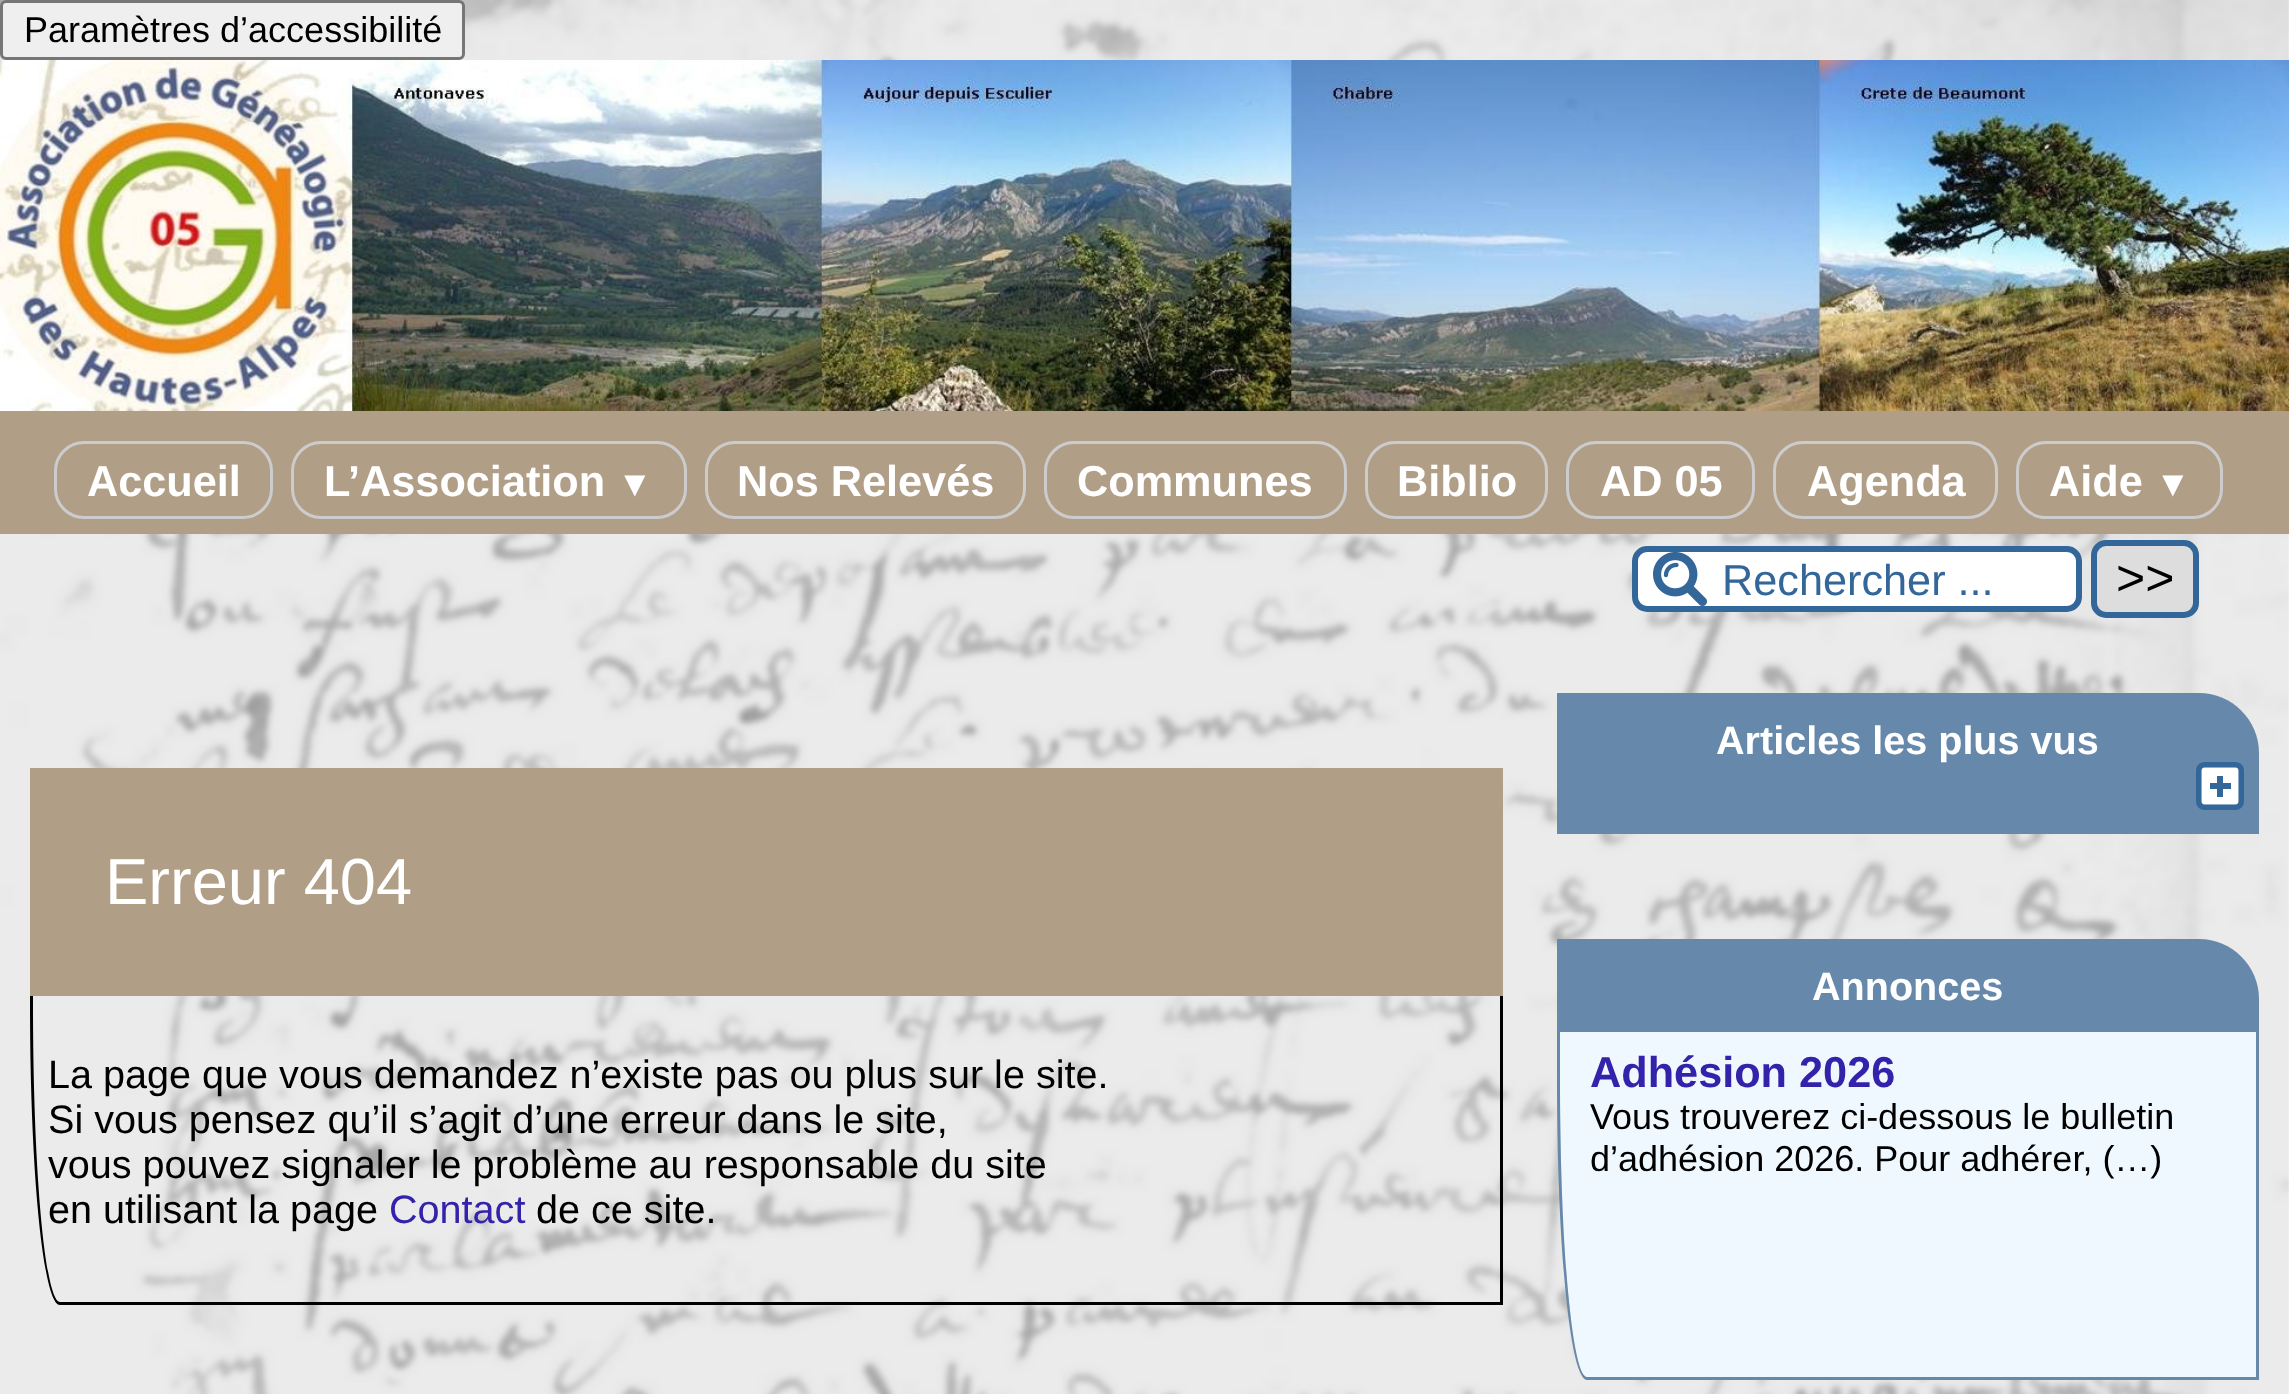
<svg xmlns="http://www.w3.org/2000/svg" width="2289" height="1394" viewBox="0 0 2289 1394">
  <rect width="100%" height="100%" fill="#fff"/>
  <image x="0" y="0" width="2289" height="1394" href="img/1.png"/>
  <rect x="1.5" y="1.5" width="462" height="57" rx="4.5" fill="#efefef" stroke="#767676" stroke-width="3"/>
  <image x="0" y="60" width="2289" height="351" href="img/2.png"/>
  <path d="M0 411h2289v123H0z" fill="#b19e87"/>
  <rect x="55.5" y="442.5" width="216" height="75" rx="28.5" fill="none" stroke="#ccc" stroke-width="3"/>
  <rect x="292.5" y="442.5" width="393" height="75" rx="28.5" fill="none" stroke="#ccc" stroke-width="3"/>
  <rect x="706.5" y="442.5" width="318" height="75" rx="28.5" fill="none" stroke="#ccc" stroke-width="3"/>
  <rect x="1045.5" y="442.5" width="300" height="75" rx="28.5" fill="none" stroke="#ccc" stroke-width="3"/>
  <rect x="1366.5" y="442.5" width="180" height="75" rx="28.5" fill="none" stroke="#ccc" stroke-width="3"/>
  <rect x="1567.5" y="442.5" width="186" height="75" rx="28.5" fill="none" stroke="#ccc" stroke-width="3"/>
  <rect x="1774.5" y="442.5" width="222" height="75" rx="28.5" fill="none" stroke="#ccc" stroke-width="3"/>
  <rect x="2017.5" y="442.5" width="204" height="75" rx="28.5" fill="none" stroke="#ccc" stroke-width="3"/>
  <rect x="1632" y="546" width="450" height="66" rx="15" fill="#fff"/>
  <image x="1653" y="552" width="54" height="54" href="img/3.png"/>
  <rect x="1635" y="549" width="444" height="60" rx="12" fill="none" stroke="#369" stroke-width="6"/>
  <rect x="2094" y="543" width="102" height="72" rx="12" fill="#ddd" stroke="#369" stroke-width="6"/>
  <path d="M1557 693H2199C2232 693 2259 720 2259 753V834H1557Z" fill="#68a"/>
  <image x="2196" y="762" width="48" height="48" href="img/4.png"/>
  <path d="M30 768h1473v228H30z" fill="#b19e87"/>
  <path d="M30 996H1503V1305H60C43 1305 30 1171 30 1005ZM33 996H1500V1302H60C45 1302 33 1169 33 1005Z" fill="#000" fill-rule="evenodd"/>
  <path d="M1557 939H2199C2232 939 2259 966 2259 999V1032H1557Z" fill="#68a"/>
  <path d="M1560 1032H2256V1377H1587C1572 1377 1560 1244 1560 1080Z" fill="#f0f8ff"/>
  <path d="M1557 1032H2259V1380H1587C1570 1380 1557 1246 1557 1080ZM1560 1032H2256V1377H1587C1572 1377 1560 1244 1560 1080Z" fill="#68a" fill-rule="evenodd"/>
  <text x="24" y="42" font-family="Liberation Sans" font-size="36" fill="#000">Paramètres d’accessibilité</text>
  <g font-family="Liberation Sans" font-size="43.25" font-weight="bold" fill="#fff">
    <text x="87" y="496">Accueil</text>
    <text x="324" y="496">L’Association</text>
  </g>
  <text x="617" y="496" font-family="Liberation Sans" font-size="36" font-weight="bold" fill="#fff">▼</text>
  <g font-family="Liberation Sans" font-size="43.25" font-weight="bold" fill="#fff">
    <text x="737" y="496">Nos Relevés</text>
    <text x="1077" y="496">Communes</text>
    <text x="1397" y="496">Biblio</text>
    <text x="1600" y="496">AD 05</text>
    <text x="1807" y="496">Agenda</text>
    <text x="2049" y="496">Aide</text>
  </g>
  <text x="2155" y="496" font-family="Liberation Sans" font-size="36" font-weight="bold" fill="#fff">▼</text>
  <text x="1722" y="595" font-family="Liberation Sans" font-size="43.25" fill="#369">Rechercher ...</text>
  <text x="2116" y="595" font-family="Liberation Sans" font-size="50" fill="#000">&gt;&gt;</text>
  <text x="1716" y="754" font-family="Liberation Sans" font-size="39.6" font-weight="bold" fill="#fff">Articles les plus vus</text>
  <text x="105" y="904" font-family="Liberation Sans" font-size="65" fill="#fff">Erreur 404</text>
  <g font-family="Liberation Sans" font-size="39.6" fill="#000">
    <text x="48" y="1088">La page que vous demandez n’existe pas ou plus sur le site.</text>
    <text x="48" y="1133">Si vous pensez qu’il s’agit d’une erreur dans le site,</text>
    <text x="48" y="1178">vous pouvez signaler le problème au responsable du site</text>
    <text x="48" y="1223">en utilisant la page</text>
  </g>
  <text x="389" y="1223" font-family="Liberation Sans" font-size="39.6" fill="#32a">Contact</text>
  <text x="536" y="1223" font-family="Liberation Sans" font-size="39.6" fill="#000">de ce site.</text>
  <text x="1812" y="1000" font-family="Liberation Sans" font-size="39.6" font-weight="bold" fill="#fff">Annonces</text>
  <text x="1590" y="1087" font-family="Liberation Sans" font-size="43.25" font-weight="bold" fill="#32a">Adhésion 2026</text>
  <g font-family="Liberation Sans" font-size="36" fill="#000">
    <text x="1590" y="1129">Vous trouverez ci-dessous le bulletin</text>
    <text x="1590" y="1171">d’adhésion 2026. Pour adhérer, (…)</text>
  </g>
</svg>
